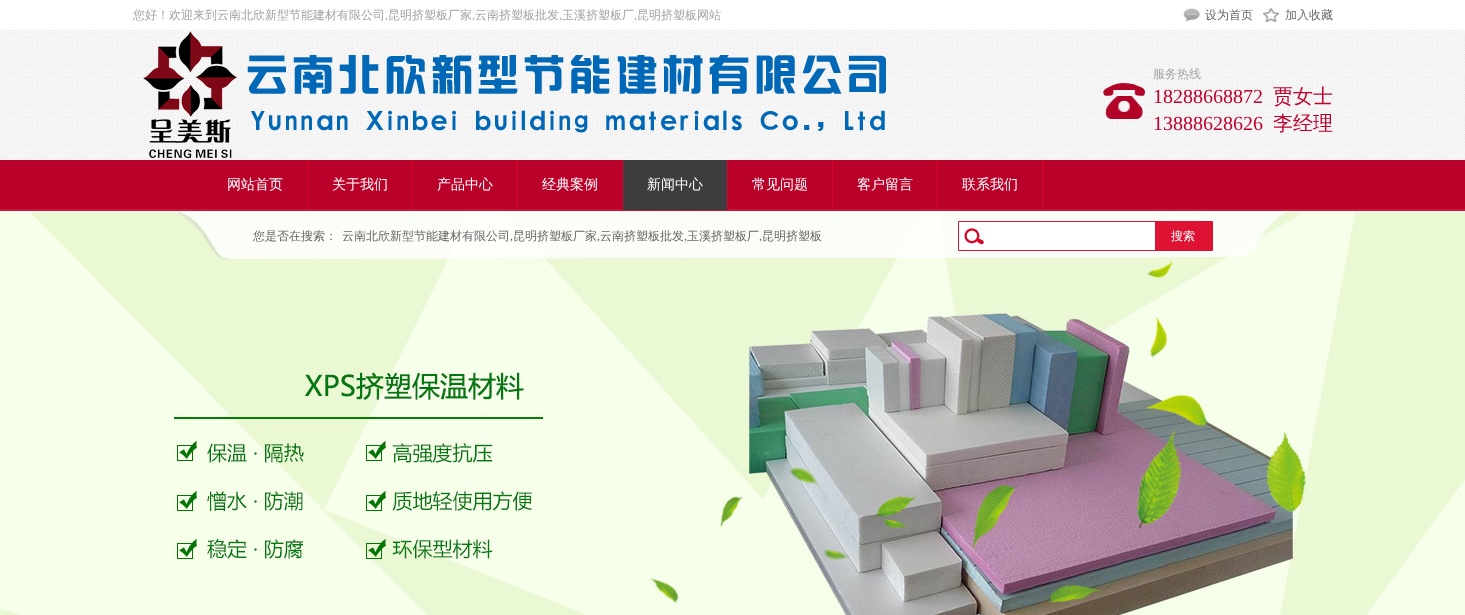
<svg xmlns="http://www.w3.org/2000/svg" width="1465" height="615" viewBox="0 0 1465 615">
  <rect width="100%" height="100%" fill="#fff"/>
  <image x="0" y="30" width="1465" height="182" href="img/1.png"/>
  <image x="1183" y="8" width="17" height="14" href="img/2.png"/>
  <image x="1263" y="8" width="16" height="14" href="img/3.png"/>
  <image x="143" y="31" width="743" height="127" href="img/4.png"/>
  <image x="1103" y="83" width="42" height="36" href="img/5.png"/>
  <image x="0" y="212" width="1465" height="403" href="img/9.png"/>
  <image x="177" y="212" width="1109" height="48" href="img/6.png"/>
  <path d="M958.5 221.5h254v29H958.5z" fill="none" stroke="#de1233"/>
  <path d="M959 222h196v28H959z" fill="#fff"/>
  <image x="964" y="228" width="20" height="17" href="img/7.png"/>
  <path d="M1155 222h57v28H1155z" fill="#de1233"/>
  <image x="0" y="160" width="1465" height="51" href="img/8.png"/>
  <path d="M307 160h1v50H307z" fill="#d50330"/>
  <path d="M412 160h1v50H412z" fill="#d50330"/>
  <path d="M517 160h1v50H517z" fill="#d50330"/>
  <path d="M622 160h1v50H622z" fill="#d50330"/>
  <path d="M623 160h104v50H623z" fill="#3d3d3f"/>
  <path d="M727 160h1v51H727z" fill="#d50330"/>
  <path d="M623 210h105v1H623z" fill="#ba1938"/>
  <path d="M832 160h1v50H832z" fill="#d50330"/>
  <path d="M937 160h1v50H937z" fill="#d50330"/>
  <path d="M1042 160h1v50H1042z" fill="#d50330"/>
  <text x="133" y="19" font-family="WenQuanYi Zen Hei" font-size="12" font-weight="500" fill="#a2a2a2">您好！欢迎来到云南北欣新型节能建材有限公司</text>
  <text x="385" y="19" font-family="Liberation Serif" font-size="12" fill="#a2a2a2">,</text>
  <text x="388" y="19" font-family="WenQuanYi Zen Hei" font-size="12" font-weight="500" fill="#a2a2a2">昆明挤塑板厂家</text>
  <text x="472" y="19" font-family="Liberation Serif" font-size="12" fill="#a2a2a2">,</text>
  <text x="475" y="19" font-family="WenQuanYi Zen Hei" font-size="12" font-weight="500" fill="#a2a2a2">云南挤塑板批发</text>
  <text x="559" y="19" font-family="Liberation Serif" font-size="12" fill="#a2a2a2">,</text>
  <text x="562" y="19" font-family="WenQuanYi Zen Hei" font-size="12" font-weight="500" fill="#a2a2a2">玉溪挤塑板厂</text>
  <text x="634" y="19" font-family="Liberation Serif" font-size="12" fill="#a2a2a2">,</text>
  <text x="637" y="19" font-family="WenQuanYi Zen Hei" font-size="12" font-weight="500" fill="#a2a2a2">昆明挤塑板网站</text>
  <g font-family="WenQuanYi Zen Hei" font-size="12" font-weight="500" fill="#666">
    <text x="1205" y="19">设为首页</text>
    <text x="1285" y="19">加入收藏</text>
  </g>
  <text x="1153" y="78" font-family="WenQuanYi Zen Hei" font-size="12" font-weight="500" fill="#a2a2a2">服务热线</text>
  <text x="1153" y="103" font-family="Liberation Serif" font-size="20" fill="#bf022c">18288668872</text>
  <text x="1273" y="103" font-family="WenQuanYi Zen Hei" font-size="20" font-weight="500" fill="#bf022c">贾女士</text>
  <text x="1153" y="130" font-family="Liberation Serif" font-size="20" fill="#bf022c">13888628626</text>
  <text x="1273" y="130" font-family="WenQuanYi Zen Hei" font-size="20" font-weight="500" fill="#bf022c">李经理</text>
  <g font-family="WenQuanYi Zen Hei" font-size="12" font-weight="500" fill="#666">
    <text x="253" y="240">您是否在搜索：</text>
    <text x="342" y="240">云南北欣新型节能建材有限公司</text>
  </g>
  <text x="510" y="240" font-family="Liberation Serif" font-size="12" fill="#666">,</text>
  <text x="513" y="240" font-family="WenQuanYi Zen Hei" font-size="12" font-weight="500" fill="#666">昆明挤塑板厂家</text>
  <text x="597" y="240" font-family="Liberation Serif" font-size="12" fill="#666">,</text>
  <text x="600" y="240" font-family="WenQuanYi Zen Hei" font-size="12" font-weight="500" fill="#666">云南挤塑板批发</text>
  <text x="684" y="240" font-family="Liberation Serif" font-size="12" fill="#666">,</text>
  <text x="687" y="240" font-family="WenQuanYi Zen Hei" font-size="12" font-weight="500" fill="#666">玉溪挤塑板厂</text>
  <text x="759" y="240" font-family="Liberation Serif" font-size="12" fill="#666">,</text>
  <text x="762" y="240" font-family="WenQuanYi Zen Hei" font-size="12" font-weight="500" fill="#666">昆明挤塑板</text>
  <text x="1171" y="240" font-family="WenQuanYi Zen Hei" font-size="12" font-weight="500" fill="#fff">搜索</text>
  <g font-family="WenQuanYi Zen Hei" font-size="14" font-weight="500" fill="#fff">
    <text x="227" y="189">网站首页</text>
    <text x="332" y="189">关于我们</text>
    <text x="437" y="189">产品中心</text>
    <text x="542" y="189">经典案例</text>
    <text x="647" y="189">新闻中心</text>
    <text x="752" y="189">常见问题</text>
    <text x="857" y="189">客户留言</text>
    <text x="962" y="189">联系我们</text>
  </g>
</svg>
